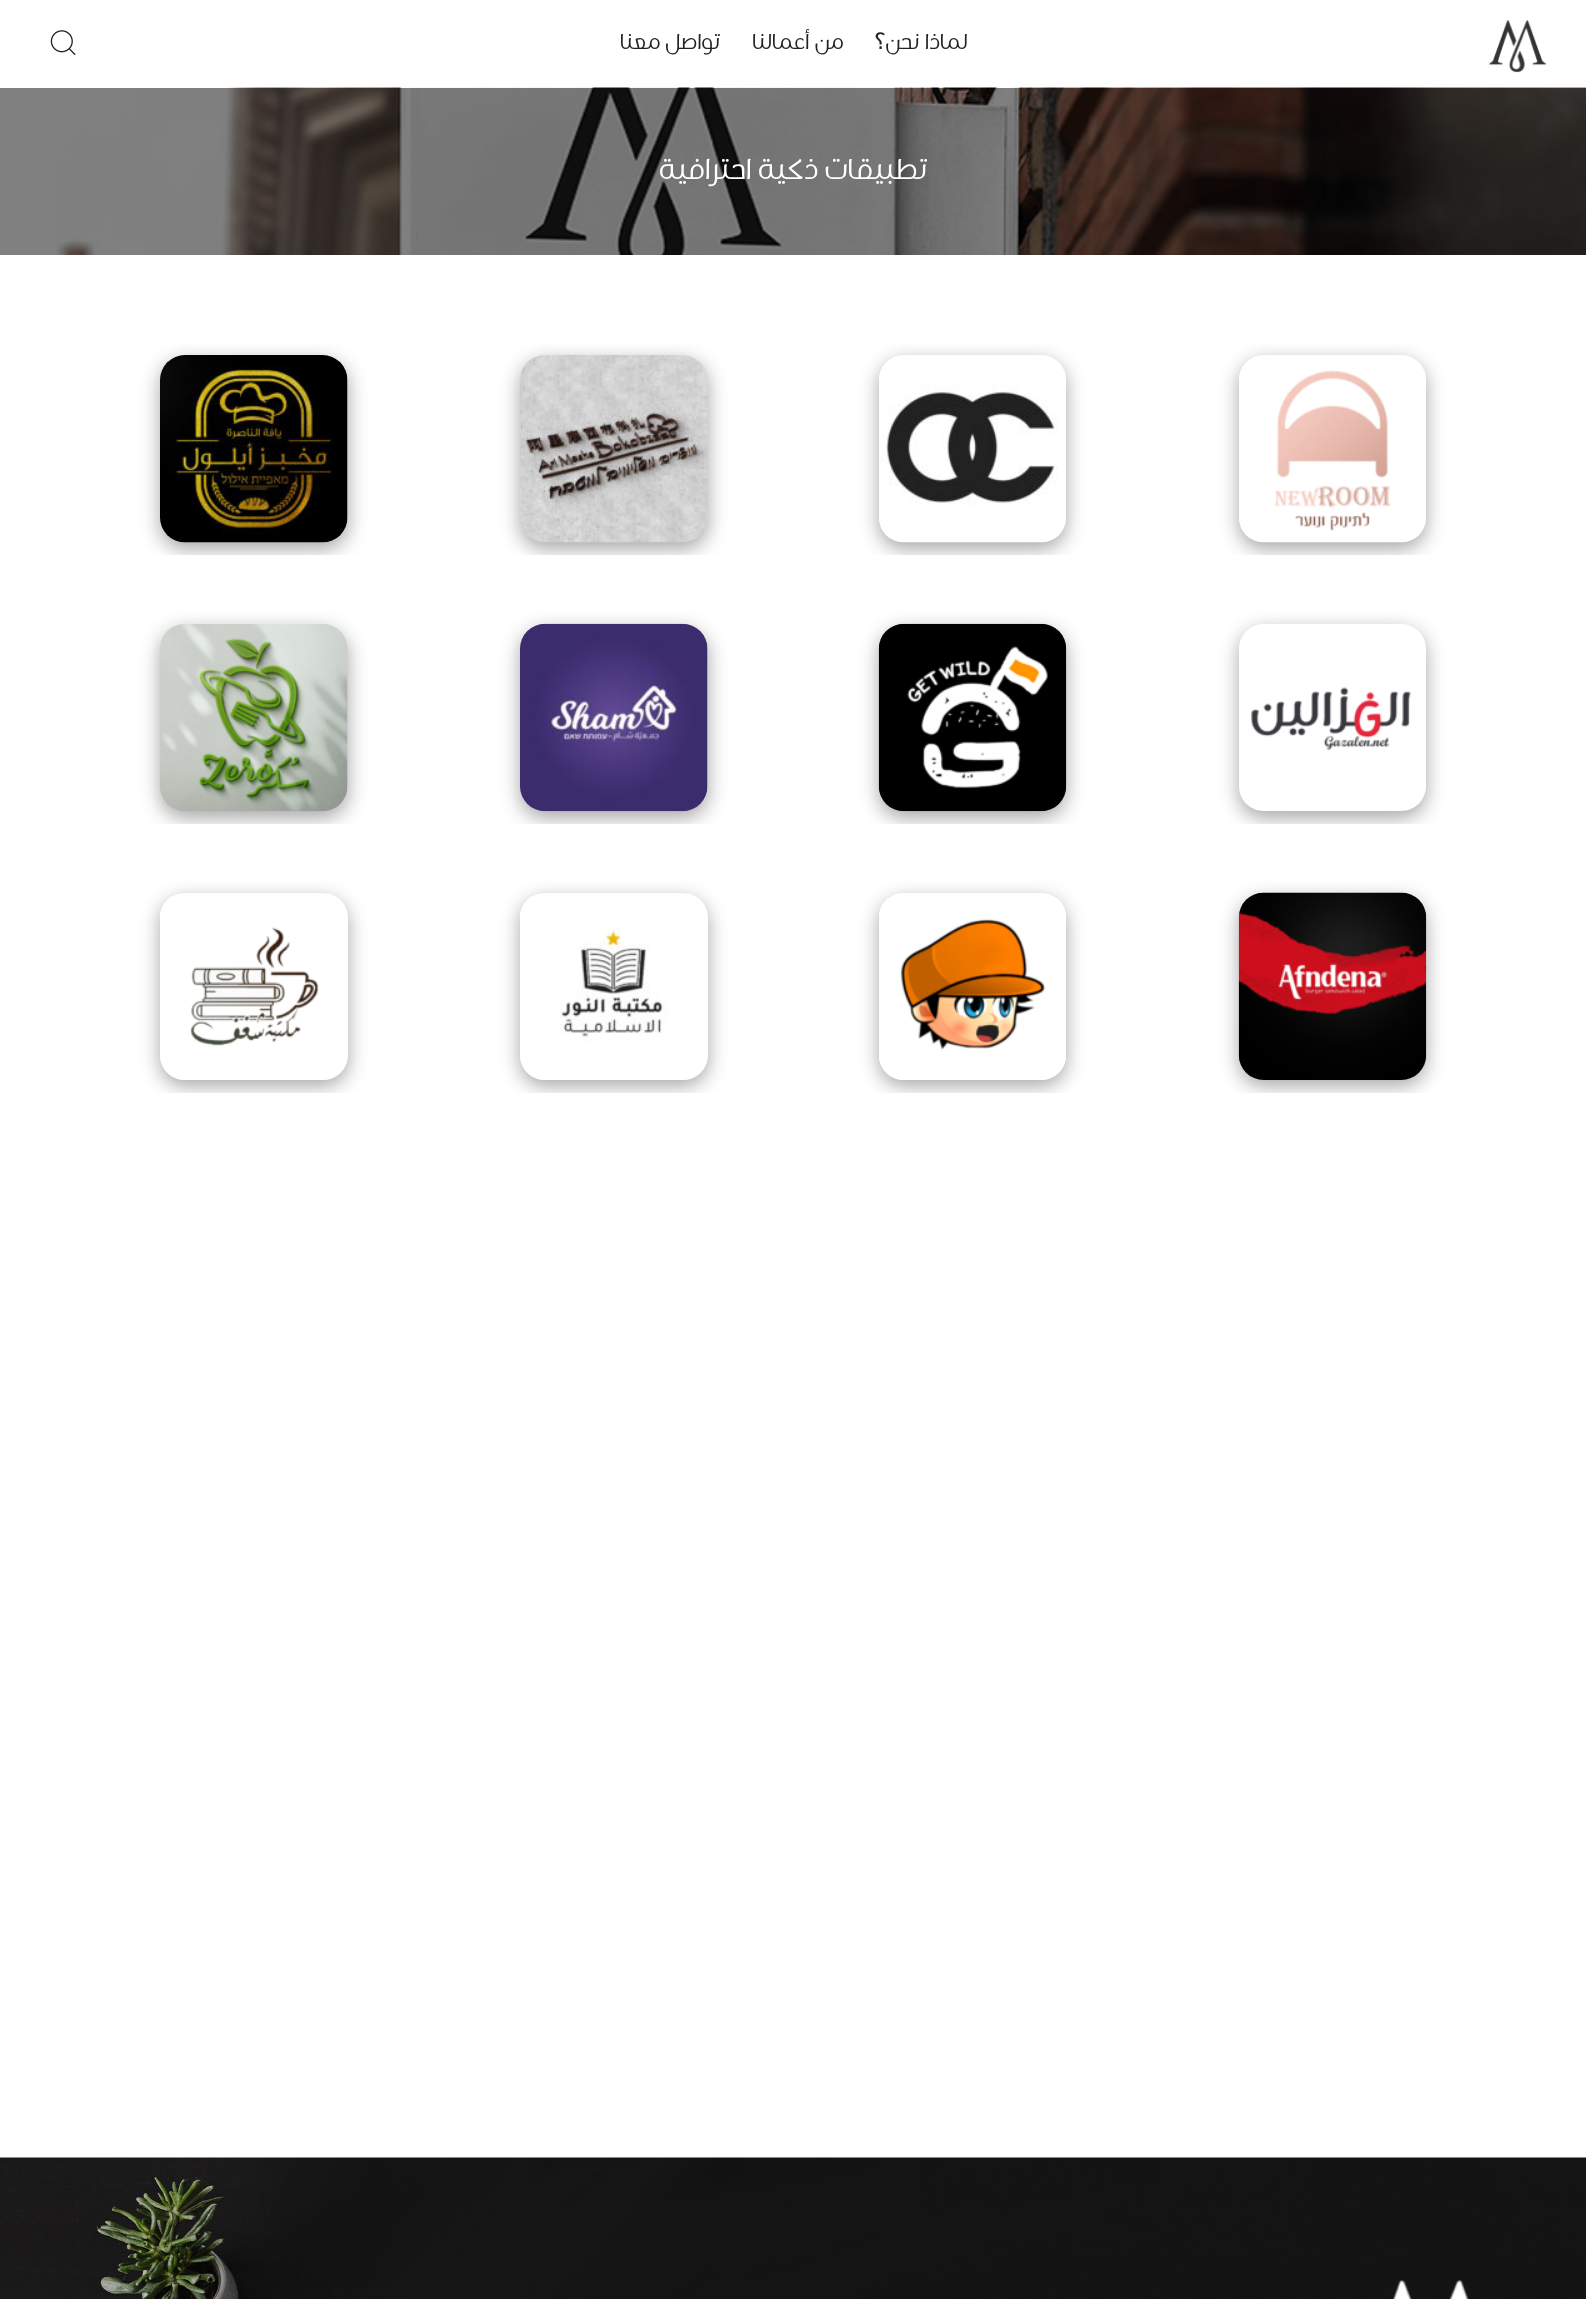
<svg xmlns="http://www.w3.org/2000/svg" width="1586" height="2299" viewBox="0 0 1586 2299">
  <defs>
    <clipPath id="clip1"><path d="M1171 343h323v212H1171z"/></clipPath>
    <clipPath id="clip2"><path d="M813 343h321v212H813z"/></clipPath>
    <clipPath id="clip3"><path d="M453 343h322v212H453z"/></clipPath>
    <clipPath id="clip4"><path d="M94 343h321v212H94z"/></clipPath>
    <clipPath id="clip5"><path d="M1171 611h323v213H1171z"/></clipPath>
    <clipPath id="clip6"><path d="M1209 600H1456V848H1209ZM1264 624H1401C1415 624 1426 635 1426 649V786C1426 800 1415 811 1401 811H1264C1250 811 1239 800 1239 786V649C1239 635 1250 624 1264 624Z" clip-rule="evenodd"/></clipPath>
    <clipPath id="clip7"><path d="M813 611h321v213H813z"/></clipPath>
    <clipPath id="clip8"><path d="M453 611h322v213H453z"/></clipPath>
    <clipPath id="clip9"><path d="M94 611h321v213H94z"/></clipPath>
    <clipPath id="clip10"><path d="M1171 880h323v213H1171z"/></clipPath>
    <clipPath id="clip11"><path d="M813 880h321v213H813z"/></clipPath>
    <clipPath id="clip12"><path d="M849 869H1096V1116H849ZM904 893H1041C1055 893 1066 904 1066 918V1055C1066 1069 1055 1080 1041 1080H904C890 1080 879 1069 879 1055V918C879 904 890 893 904 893Z" clip-rule="evenodd"/></clipPath>
    <clipPath id="clip13"><path d="M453 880h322v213H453z"/></clipPath>
    <clipPath id="clip14"><path d="M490 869H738V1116H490ZM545 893H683C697 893 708 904 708 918V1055C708 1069 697 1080 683 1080H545C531 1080 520 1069 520 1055V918C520 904 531 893 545 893Z" clip-rule="evenodd"/></clipPath>
    <clipPath id="clip15"><path d="M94 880h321v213H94z"/></clipPath>
    <clipPath id="clip16"><path d="M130 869H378V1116H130ZM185 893H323C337 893 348 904 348 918V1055C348 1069 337 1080 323 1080H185C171 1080 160 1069 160 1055V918C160 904 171 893 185 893Z" clip-rule="evenodd"/></clipPath>
  </defs>
  <rect width="100%" height="100%" fill="#fff"/>
  <path d="M0 88h56v167H0z" fill="#808080"/>
  <image x="1488" y="20" width="59" height="53" href="img/1.png"/>
  <image x="50" y="30" width="26" height="25" href="img/2.png"/>
  <image x="56" y="87" width="1530" height="168" href="img/3.png"/>
  <g clip-path="url(#clip1)">
    <rect x="1239" y="361" width="187" height="188" rx="25" fill="#00000059" filter="blur(9.5px)"/>
  </g>
  <image x="1239" y="355" width="187" height="188" href="img/4.png"/>
  <g clip-path="url(#clip2)">
    <rect x="879" y="361" width="187" height="188" rx="25" fill="#00000059" filter="blur(9.5px)"/>
  </g>
  <image x="879" y="355" width="187" height="188" href="img/5.png"/>
  <g clip-path="url(#clip3)">
    <rect x="520" y="361" width="188" height="188" rx="25" fill="#00000059" filter="blur(9.5px)"/>
  </g>
  <image x="520" y="355" width="188" height="188" href="img/6.png"/>
  <g clip-path="url(#clip4)">
    <rect x="160" y="361" width="188" height="188" rx="25" fill="#00000059" filter="blur(9.5px)"/>
  </g>
  <image x="160" y="355" width="188" height="188" href="img/7.png"/>
  <g clip-path="url(#clip5)">
    <g clip-path="url(#clip6)">
      <rect x="1239" y="630" width="187" height="188" rx="25" fill="#00000059" filter="blur(9.5px)"/>
    </g>
  </g>
  <image x="1251" y="687" width="161" height="64" href="img/8.png"/>
  <g clip-path="url(#clip7)">
    <rect x="879" y="630" width="187" height="188" rx="25" fill="#00000059" filter="blur(9.5px)"/>
  </g>
  <image x="878" y="623" width="189" height="189" href="img/9.png"/>
  <g clip-path="url(#clip8)">
    <rect x="520" y="630" width="188" height="188" rx="25" fill="#00000059" filter="blur(9.5px)"/>
  </g>
  <image x="520" y="623" width="188" height="189" href="img/10.png"/>
  <g clip-path="url(#clip9)">
    <rect x="160" y="630" width="188" height="188" rx="25" fill="#00000059" filter="blur(9.5px)"/>
  </g>
  <image x="160" y="624" width="188" height="188" href="img/11.png"/>
  <g clip-path="url(#clip10)">
    <rect x="1239" y="899" width="187" height="187" rx="25" fill="#00000059" filter="blur(9.5px)"/>
  </g>
  <image x="1238" y="892" width="189" height="188" href="img/12.png"/>
  <g clip-path="url(#clip11)">
    <g clip-path="url(#clip12)">
      <rect x="879" y="899" width="187" height="187" rx="25" fill="#00000059" filter="blur(9.5px)"/>
    </g>
  </g>
  <image x="879" y="898" width="187" height="182" href="img/13.png"/>
  <g clip-path="url(#clip13)">
    <g clip-path="url(#clip14)">
      <rect x="520" y="899" width="188" height="187" rx="25" fill="#00000059" filter="blur(9.5px)"/>
    </g>
  </g>
  <image x="520" y="897" width="188" height="183" href="img/14.png"/>
  <g clip-path="url(#clip15)">
    <g clip-path="url(#clip16)">
      <rect x="160" y="899" width="188" height="187" rx="25" fill="#00000059" filter="blur(9.5px)"/>
    </g>
  </g>
  <image x="160" y="897" width="188" height="183" href="img/15.png"/>
  <image x="0" y="2157" width="1586" height="142" href="img/16.png"/>
  <image x="1392" y="2280" width="77" height="19" href="img/17.png"/>
  <text x="967" y="49" font-family="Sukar" font-size="22.5" direction="rtl" fill="#222">لماذا نحن</text>
  <text x="886" y="49" font-family="DejaVu Sans" font-size="22.5" direction="rtl" fill="#222">؟</text>
  <g font-family="Sukar" font-size="22.5" direction="rtl" fill="#222">
    <text x="843" y="49">من أعمالنا</text>
    <text x="720" y="49">تواصل معنا</text>
  </g>
  <text x="927" y="179" font-family="Sukar" font-size="30" direction="rtl" fill="#fff">تطبيقات ذكية احترافية</text>
</svg>
